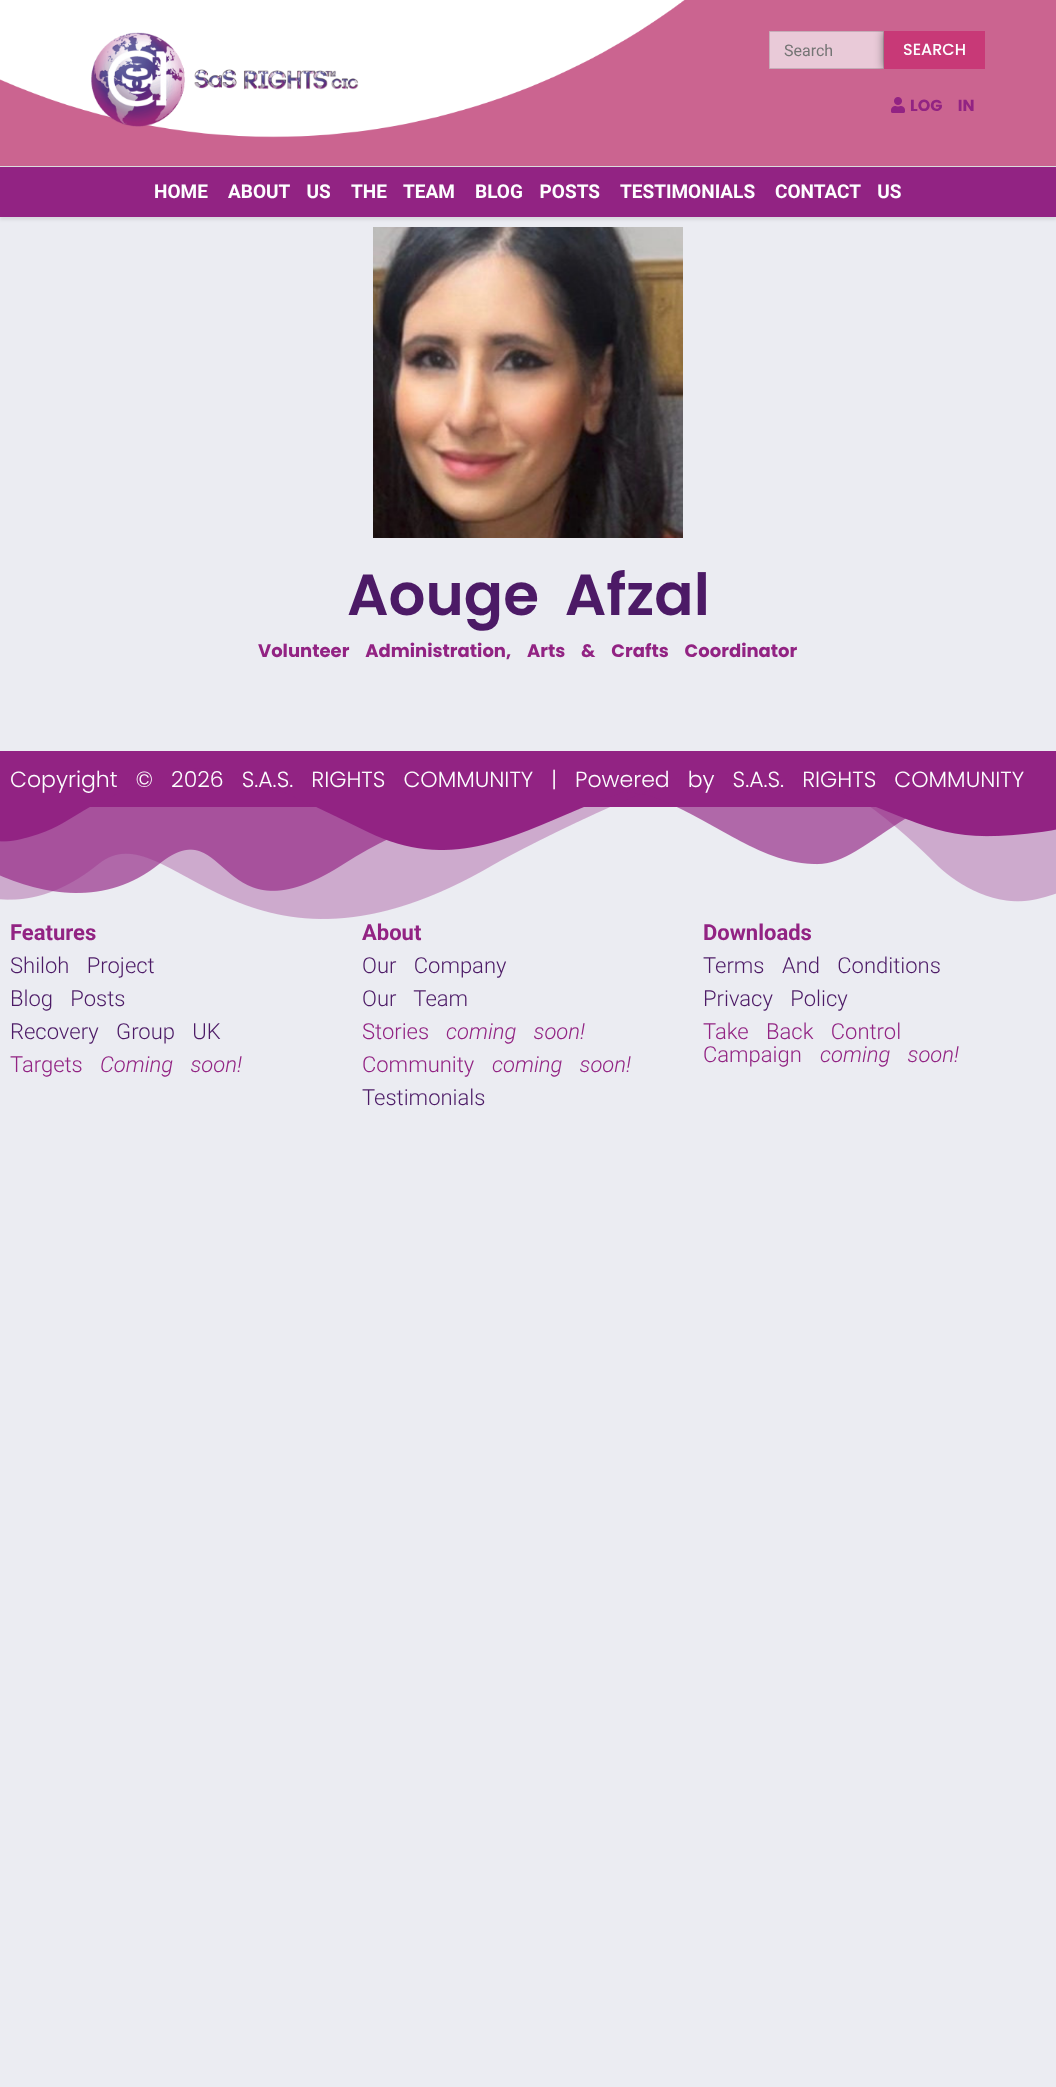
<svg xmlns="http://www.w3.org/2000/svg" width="1056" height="2087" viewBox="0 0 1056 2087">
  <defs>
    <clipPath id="clip1"><path d="M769 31h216v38H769z"/></clipPath>
  </defs>
  <rect width="100%" height="100%" fill="#ebecf2"/>
  <image x="0" y="0" width="1056" height="166" href="img/1.png"/>
  <image x="91" y="32" width="268" height="95" href="img/2.png"/>
  <path d="M769.5 31.5h114v37H769.5z" fill="#e9cad8" stroke="#c6acb8"/>
  <g clip-path="url(#clip1)">
    <path d="M884 31h101v38H884z" fill="#00000080" filter="blur(5px)"/>
  </g>
  <path d="M884 31h101v38H884z" fill="#c83977"/>
  <image x="891" y="97" width="14" height="16" href="img/3.png"/>
  <path d="M0 169h1056v51H0z" fill="#00000014" filter="blur(1.5px)"/>
  <path d="M0 167h1056v50H0z" fill="#922383"/>
  <path d="M0 166h1056v1H0z" fill="#ddd"/>
  <image x="373" y="227" width="310" height="311" href="img/4.png"/>
  <path d="M90 768h786v39H90z" fill="#922383"/>
  <image x="0" y="751" width="1056" height="168" href="img/5.png"/>
  <text x="784" y="56" font-family="Roboto" font-size="16" fill="#757575">Search</text>
  <text x="903" y="55" font-family="Poppins" font-size="16" font-weight="500" fill="#fdfeff">SEARCH</text>
  <text x="910" y="111" word-spacing="12" font-family="Poppins" font-size="16" font-weight="bold" fill="#922383">LOG IN</text>
  <g font-family="Roboto" font-size="19" font-weight="bold" fill="#fdfeff">
    <text x="154" y="198">HOME</text>
    <text x="228" y="198" word-spacing="12">ABOUT US</text>
    <text x="351" y="198" word-spacing="12">THE TEAM</text>
    <text x="475" y="198" word-spacing="12">BLOG POSTS</text>
    <text x="620" y="198">TESTIMONIALS</text>
    <text x="775" y="198" word-spacing="12">CONTACT US</text>
  </g>
  <text x="347" y="615" word-spacing="12" font-family="Poppins" font-size="58" font-weight="600" fill="#4c1a66">Aouge Afzal</text>
  <text x="258" y="657" word-spacing="12" font-family="Poppins" font-size="18" font-weight="bold" fill="#922383">Volunteer Administration, Arts &amp; Crafts Coordinator</text>
  <text x="10" y="787" word-spacing="12" font-family="Poppins" font-size="22" font-weight="300" fill="#fdfeff">Copyright © 2026 S.A.S. RIGHTS COMMUNITY | Powered by S.A.S. RIGHTS COMMUNITY</text>
  <text x="10" y="940" font-family="Roboto" font-size="22" font-weight="bold" fill="#922383">Features</text>
  <g font-family="Roboto" font-size="22" font-weight="300" fill="#4c1a66">
    <text x="10" y="973" word-spacing="12">Shiloh Project</text>
    <text x="10" y="1006" word-spacing="12">Blog Posts</text>
    <text x="10" y="1039" word-spacing="12">Recovery Group UK</text>
  </g>
  <text x="10" y="1072" font-family="Roboto" font-size="22" font-weight="300" fill="#922383">Targets</text>
  <text x="100" y="1072" word-spacing="12" font-family="Roboto" font-size="22" font-weight="300" font-style="italic" fill="#922383">Coming soon!</text>
  <text x="362" y="940" font-family="Roboto" font-size="22" font-weight="bold" fill="#922383">About</text>
  <g font-family="Roboto" font-size="22" font-weight="300" fill="#4c1a66">
    <text x="362" y="973" word-spacing="12">Our Company</text>
    <text x="362" y="1006" word-spacing="12">Our Team</text>
  </g>
  <text x="362" y="1039" font-family="Roboto" font-size="22" font-weight="300" fill="#922383">Stories</text>
  <text x="446" y="1039" word-spacing="12" font-family="Roboto" font-size="22" font-weight="300" font-style="italic" fill="#922383">coming soon!</text>
  <text x="362" y="1072" font-family="Roboto" font-size="22" font-weight="300" fill="#922383">Community</text>
  <text x="492" y="1072" word-spacing="12" font-family="Roboto" font-size="22" font-weight="300" font-style="italic" fill="#922383">coming soon!</text>
  <text x="362" y="1105" font-family="Roboto" font-size="22" font-weight="300" fill="#4c1a66">Testimonials</text>
  <text x="703" y="940" font-family="Roboto" font-size="22" font-weight="bold" fill="#922383">Downloads</text>
  <g font-family="Roboto" font-size="22" font-weight="300" fill="#4c1a66">
    <text x="703" y="973" word-spacing="12">Terms And Conditions</text>
    <text x="703" y="1006" word-spacing="12">Privacy Policy</text>
  </g>
  <g font-family="Roboto" font-size="22" font-weight="300" fill="#922383">
    <text x="703" y="1039" word-spacing="12">Take Back Control</text>
    <text x="703" y="1062">Campaign</text>
  </g>
  <text x="820" y="1062" word-spacing="12" font-family="Roboto" font-size="22" font-weight="300" font-style="italic" fill="#922383">coming soon!</text>
</svg>
